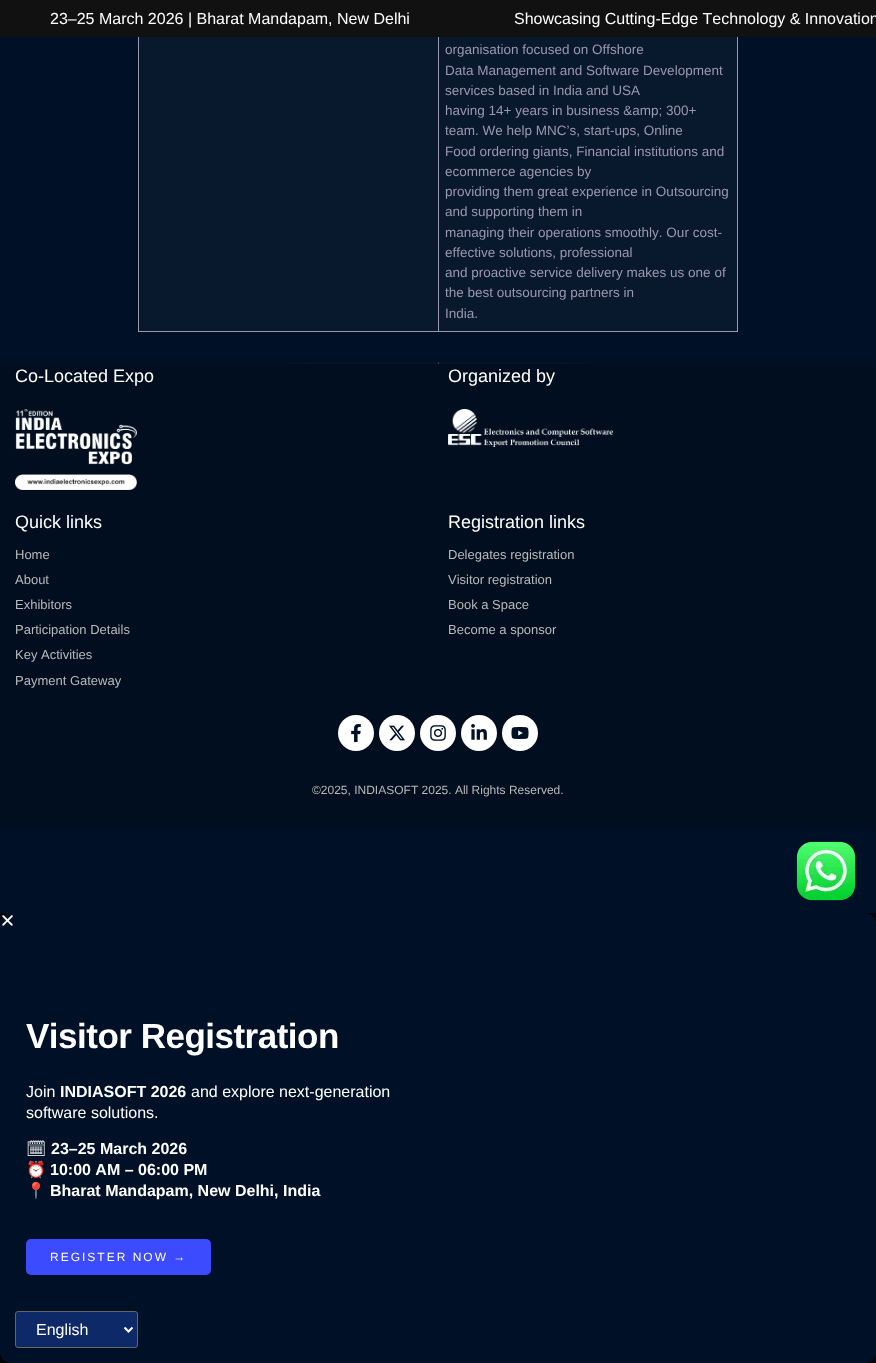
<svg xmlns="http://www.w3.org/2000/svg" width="876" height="1363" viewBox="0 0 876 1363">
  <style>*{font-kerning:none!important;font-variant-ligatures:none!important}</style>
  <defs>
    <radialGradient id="g1" gradientUnits="userSpaceOnUse" cx="0" cy="0" r="1" gradientTransform="matrix(619 0 0 0.7 438 363)"><stop offset="0" stop-color="#2c3745"/><stop offset="0.8" stop-color="#001127"/></radialGradient>
    <radialGradient id="g2" gradientUnits="userSpaceOnUse" cx="0" cy="0" r="1" gradientTransform="matrix(619 0 0 0.7 438 364)"><stop offset="0" stop-color="#2c3745"/><stop offset="0.8" stop-color="#001127"/></radialGradient>
  </defs>
  <rect width="100%" height="100%" fill="#001127"/>
  <path d="M0 0h876v37H0z" fill="#111"/>
  <path d="M139 37h299v294H139z" fill="#09192d"/>
  <path d="M737 37h1v295H737z" fill="#9b96b0"/>
  <path d="M438 331h300v1H438z" fill="#9b96b0"/>
  <path d="M438 37h1v295H438z" fill="#9b96b0"/>
  <path d="M138 331h301v1H138z" fill="#9b96b0"/>
  <path d="M138 37h1v295H138z" fill="#9b96b0"/>
  <path d="M439 37h298v294H439z" fill="#09192d"/>
  <path d="M0 364h876v465H0z" fill="#010e1f"/>
  <path d="M288 362h300v1H288z" fill="url(#g1)"/>
  <path d="M438 362h1v1H438z" fill="#303d4e"/>
  <path d="M288 363h300v1H288z" fill="url(#g2)"/>
  <path d="M438 363h1v1H438z" fill="#303d4e"/>
  <image x="15" y="409" width="122" height="81" href="img/1.png"/>
  <image x="448" y="409" width="165" height="38" href="img/2.png"/>
  <circle cx="356" cy="733" r="18" fill="#fff"/>
  <image x="351" y="724" width="10" height="18" href="img/3.png"/>
  <circle cx="397" cy="733" r="18" fill="#fff"/>
  <image x="389" y="725" width="16" height="16" href="img/4.png"/>
  <circle cx="438" cy="733" r="18" fill="#fff"/>
  <image x="430" y="725" width="16" height="16" href="img/5.png"/>
  <circle cx="479" cy="733" r="18" fill="#fff"/>
  <image x="471" y="724" width="16" height="16" href="img/6.png"/>
  <circle cx="520" cy="733" r="18" fill="#fff"/>
  <image x="511" y="727" width="18" height="12" href="img/7.png"/>
  <image x="796" y="841" width="60" height="60" href="img/8.png"/>
  <path d="M0 913h876v450H0z" fill="#000308"/>
  <rect y="913" width="876" height="450" rx="11" fill="#001127"/>
  <image x="2" y="915" width="11" height="11" href="img/9.png"/>
  <rect x="26" y="1239" width="185" height="36" rx="5" fill="#3d4bff"/>
  <rect x="15.5" y="1311.5" width="122" height="36" rx="2.5" fill="#0e2968" stroke="#666"/>
  <path d="M124.5 1327.5L128.5 1331.5L132.5 1327.5" fill="none" stroke="#fff" stroke-width="2"/>
  <g font-family="Liberation Sans" font-size="16" fill="#fff">
    <text x="50" y="24">23–25 March 2026 | Bharat Mandapam, New Delhi</text>
    <text x="514" y="24">Showcasing Cutting-Edge Technology &amp; Innovation</text>
  </g>
  <g font-family="Liberation Sans" font-size="13.5" fill="#9b96b0">
    <text x="445" y="54">organisation focused on Offshore</text>
    <text x="445" y="75">Data Management and Software Development</text>
    <text x="445" y="95">services based in India and USA</text>
    <text x="445" y="115">having 14+ years in business &amp;amp; 300+</text>
    <text x="445" y="135">team. We help MNC’s, start-ups, Online</text>
    <text x="445" y="156">Food ordering giants, Financial institutions and</text>
    <text x="445" y="176">ecommerce agencies by</text>
    <text x="445" y="196">providing them great experience in Outsourcing</text>
    <text x="445" y="216">and supporting them in</text>
    <text x="445" y="237">managing their operations smoothly. Our cost-</text>
    <text x="445" y="257">effective solutions, professional</text>
    <text x="445" y="277">and proactive service delivery makes us one of</text>
    <text x="445" y="297">the best outsourcing partners in</text>
    <text x="445" y="318">India.</text>
  </g>
  <g font-family="Liberation Sans" font-size="18" fill="#fff">
    <text x="15" y="382">Co-Located Expo</text>
    <text x="448" y="382">Organized by</text>
    <text x="15" y="528">Quick links</text>
  </g>
  <g font-family="Liberation Sans" font-size="13" fill="#b9b9b9">
    <text x="15" y="559">Home</text>
    <text x="15" y="584">About</text>
    <text x="15" y="609">Exhibitors</text>
    <text x="15" y="634">Participation Details</text>
    <text x="15" y="659">Key Activities</text>
    <text x="15" y="685">Payment Gateway</text>
  </g>
  <text x="448" y="528" font-family="Liberation Sans" font-size="18" fill="#fff">Registration links</text>
  <g font-family="Liberation Sans" font-size="13" fill="#b9b9b9">
    <text x="448" y="559">Delegates registration</text>
    <text x="448" y="584">Visitor registration</text>
    <text x="448" y="609">Book a Space</text>
    <text x="448" y="634">Become a sponsor</text>
  </g>
  <text x="312" y="794" font-family="Liberation Sans" font-size="12" fill="#b9b9b9">©2025, INDIASOFT 2025. All Rights Reserved.</text>
  <text x="26" y="1048" font-family="Liberation Sans" font-size="35" font-weight="bold" letter-spacing="-0.5" fill="#fff">Visitor Registration</text>
  <text x="26" y="1097" font-family="Liberation Sans" font-size="16" fill="#fff">Join</text>
  <text x="60" y="1097" font-family="Liberation Sans" font-size="16" font-weight="bold" fill="#fff">INDIASOFT 2026</text>
  <g font-family="Liberation Sans" font-size="16" fill="#fff">
    <text x="191" y="1097">and explore next-generation</text>
    <text x="26" y="1118">software solutions.</text>
  </g>
  <text x="26" y="1154" font-family="Noto Emoji" font-size="16" fill="#fff">🗓</text>
  <text x="51" y="1154" font-family="Liberation Sans" font-size="16" font-weight="bold" fill="#fff">23–25 March 2026</text>
  <text x="26" y="1175" font-family="Noto Color Emoji" font-size="16" fill="#fff">⏰</text>
  <text x="50" y="1175" font-family="Liberation Sans" font-size="16" font-weight="bold" fill="#fff">10:00 AM – 06:00 PM</text>
  <text x="26" y="1196" font-family="Noto Color Emoji" font-size="16" fill="#fff">📍</text>
  <text x="50" y="1196" font-family="Liberation Sans" font-size="16" font-weight="bold" fill="#fff">Bharat Mandapam, New Delhi, India</text>
  <text x="50" y="1261" font-family="Liberation Sans" font-size="12" letter-spacing="2" fill="#fff">REGISTER NOW →</text>
  <text x="36" y="1335" font-family="Liberation Sans" font-size="16" fill="#fff">English</text>
</svg>
